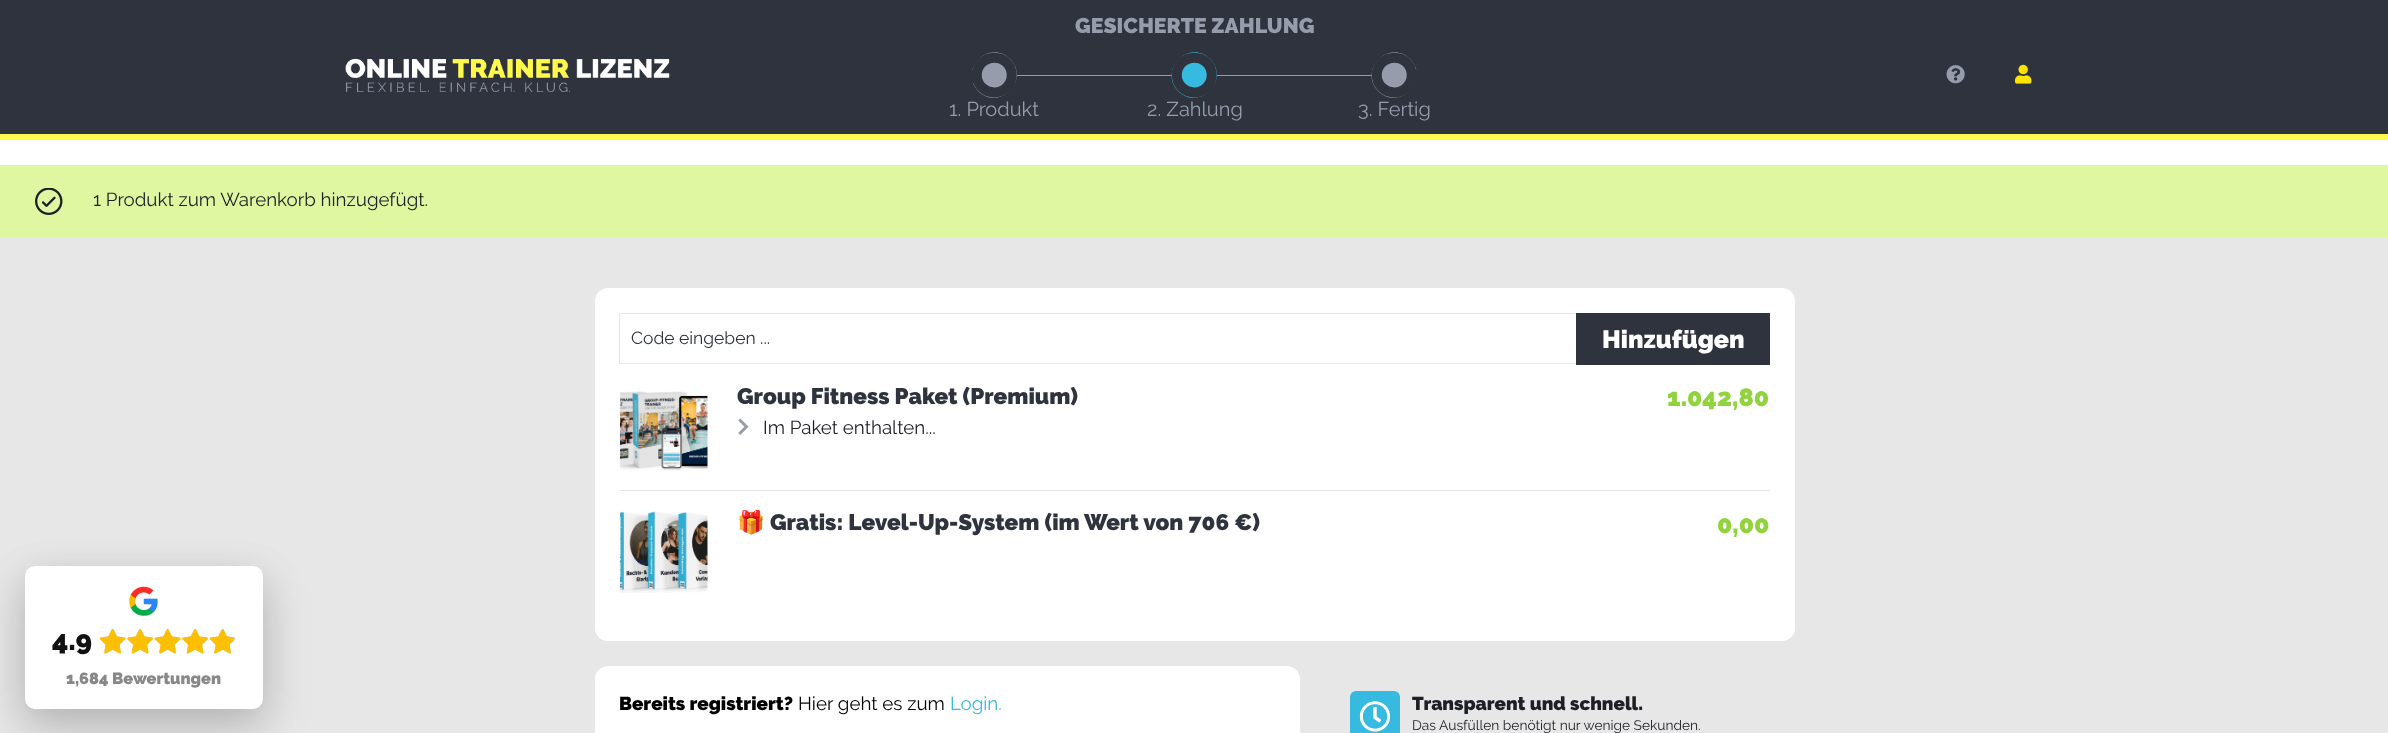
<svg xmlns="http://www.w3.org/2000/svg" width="2388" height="733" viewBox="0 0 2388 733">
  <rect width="100%" height="100%" fill="#fff"/>
  <path d="M0 0h2388v134H0z" fill="#2e333e"/>
  <image x="345" y="58" width="325" height="34" href="img/1.png"/>
  <path d="M1016 75h356v1H1016z" fill="#969cab"/>
  <path d="M1010 59C989 38 958 70 978 91C999 112 1031 80 1010 59Z" fill="#969cab"/>
  <path d="M1006.5 62.5C1000 56 989 56 982 62.5C975 69.5 975 80.5 982 87.5C989 94 1000 94 1006.5 87.5C1013.5 80.5 1013.5 69.5 1006.5 62.5Z" fill="none" stroke="#2e333e" stroke-width="10"/>
  <path d="M971 70h3v13H971z" fill="#2e333e"/>
  <path d="M1210 59C1189 38 1158 70 1178 91C1199 112 1231 80 1210 59Z" fill="#37badf"/>
  <path d="M1206.5 62.5C1200 56 1189 56 1182 62.5C1175 69.5 1175 80.5 1182 87.5C1189 94 1200 94 1206.5 87.5C1213.5 80.5 1213.5 69.5 1206.5 62.5Z" fill="none" stroke="#2e333e" stroke-width="10"/>
  <path d="M1410 59C1389 38 1358 70 1378 91C1399 112 1431 80 1410 59Z" fill="#969cab"/>
  <path d="M1406.5 62.5C1400 56 1389 56 1382 62.5C1375 69.5 1375 80.5 1382 87.5C1389 94 1400 94 1406.5 87.5C1413.5 80.5 1413.5 69.5 1406.5 62.5Z" fill="none" stroke="#2e333e" stroke-width="10"/>
  <path d="M1415 70h2v13H1415z" fill="#2e333e"/>
  <image x="1946" y="65" width="19" height="19" href="img/2.png"/>
  <image x="2015" y="64" width="17" height="20" href="img/3.png"/>
  <path d="M0 134h2388v6H0z" fill="#fff94e"/>
  <path d="M0 238h2388v495H0z" fill="#e7e7e8"/>
  <path d="M0 165h2388v73H0z" fill="#dff7a0"/>
  <image x="35" y="188" width="28" height="27" href="img/4.png"/>
  <rect x="595" y="288" width="1200" height="353" rx="13" fill="#fff"/>
  <path d="M619.5 313.5h958v50H619.5z" fill="none" stroke="#e7e7e8"/>
  <path d="M1576 313h194v52H1576z" fill="#2e333d"/>
  <path d="M620 490h1150v1H620z" fill="#e7e7e8"/>
  <image x="620" y="391" width="88" height="80" href="img/5.png"/>
  <image x="738" y="418" width="11" height="17" href="img/6.png"/>
  <image x="620" y="511" width="88" height="82" href="img/7.png"/>
  <rect x="595" y="666" width="705" height="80" rx="13" fill="#fff"/>
  <rect x="1350" y="691" width="50" height="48" rx="6" fill="#37badf"/>
  <image x="1359" y="701" width="32" height="31" href="img/8.png"/>
  <rect x="25" y="579" width="238" height="142" rx="10" fill="#00000026" filter="blur(19px)"/>
  <rect x="25" y="585" width="238" height="143" rx="10" fill="#0000001a" filter="blur(25px)"/>
  <rect x="25" y="566" width="238" height="143" rx="10" fill="#fff"/>
  <image x="129" y="586" width="29" height="30" href="img/9.png"/>
  <image x="99" y="629" width="27" height="25" href="img/11.png"/>
  <image x="99" y="628" width="27" height="26" href="img/10.png"/>
  <image x="127" y="629" width="26" height="25" href="img/13.png"/>
  <image x="127" y="628" width="26" height="26" href="img/12.png"/>
  <image x="154" y="629" width="27" height="25" href="img/11.png"/>
  <image x="154" y="628" width="27" height="26" href="img/10.png"/>
  <image x="182" y="629" width="26" height="25" href="img/13.png"/>
  <image x="182" y="628" width="26" height="26" href="img/12.png"/>
  <image x="209" y="629" width="27" height="25" href="img/11.png"/>
  <image x="209" y="628" width="25" height="26" href="img/14.png"/>
  <text x="1075" y="33" font-family="Raleway" font-size="21.25" font-weight="900" fill="#969cab">GESICHERTE ZAHLUNG</text>
  <g font-family="Raleway" font-size="20" fill="#969cab">
    <text x="949" y="116">1. Produkt</text>
    <text x="1147" y="116">2. Zahlung</text>
    <text x="1358" y="116">3. Fertig</text>
  </g>
  <text x="93" y="206" font-family="Raleway" font-size="18.75" fill="#1d1f25">1 Produkt zum Warenkorb hinzugefügt.</text>
  <text x="631" y="344" font-family="Raleway" font-size="17.5" fill="#2e333e">Code eingeben ...</text>
  <text x="1602" y="348" font-family="Raleway" font-size="25" font-weight="900" fill="#fff">Hinzufügen</text>
  <text x="737" y="404" font-family="Raleway" font-size="22.5" font-weight="900" fill="#2e333e">Group Fitness Paket (Premium)</text>
  <text x="763" y="434" font-family="Raleway" font-size="18.75" fill="#1d1f25">Im Paket enthalten...</text>
  <text x="1667" y="406" font-family="Raleway" font-size="25" font-weight="900" fill="#91d33d">1.042,80</text>
  <text x="737" y="530" font-family="Noto Color Emoji" font-size="22.5" font-weight="bold" fill="#2e333e">🎁</text>
  <text x="770" y="530" font-family="Raleway" font-size="22.5" font-weight="900" fill="#2e333e">Gratis: Level-Up-System (im Wert von 706 €)</text>
  <text x="1717" y="533" font-family="Raleway" font-size="25" font-weight="900" fill="#91d33d">0,00</text>
  <text x="619" y="710" font-family="Raleway" font-size="18.75" font-weight="900" fill="#000">Bereits registriert?</text>
  <text x="798" y="710" font-family="Raleway" font-size="18.75" fill="#000">Hier geht es zum</text>
  <text x="950" y="710" font-family="Raleway" font-size="18.75" fill="#37badf">Login.</text>
  <text x="1412" y="710" font-family="Raleway" font-size="18.75" font-weight="900" fill="#1d1f25">Transparent und schnell.</text>
  <text x="1412" y="730" font-family="Raleway" font-size="13.75" fill="#1d1f25">Das Ausfüllen benötigt nur wenige Sekunden.</text>
  <text x="52" y="650" font-family="Raleway" font-size="28" font-weight="900" fill="#111">4.9</text>
  <text x="66" y="684" font-family="Raleway" font-size="16.25" font-weight="900" fill="#888">1,684 Bewertungen</text>
</svg>
